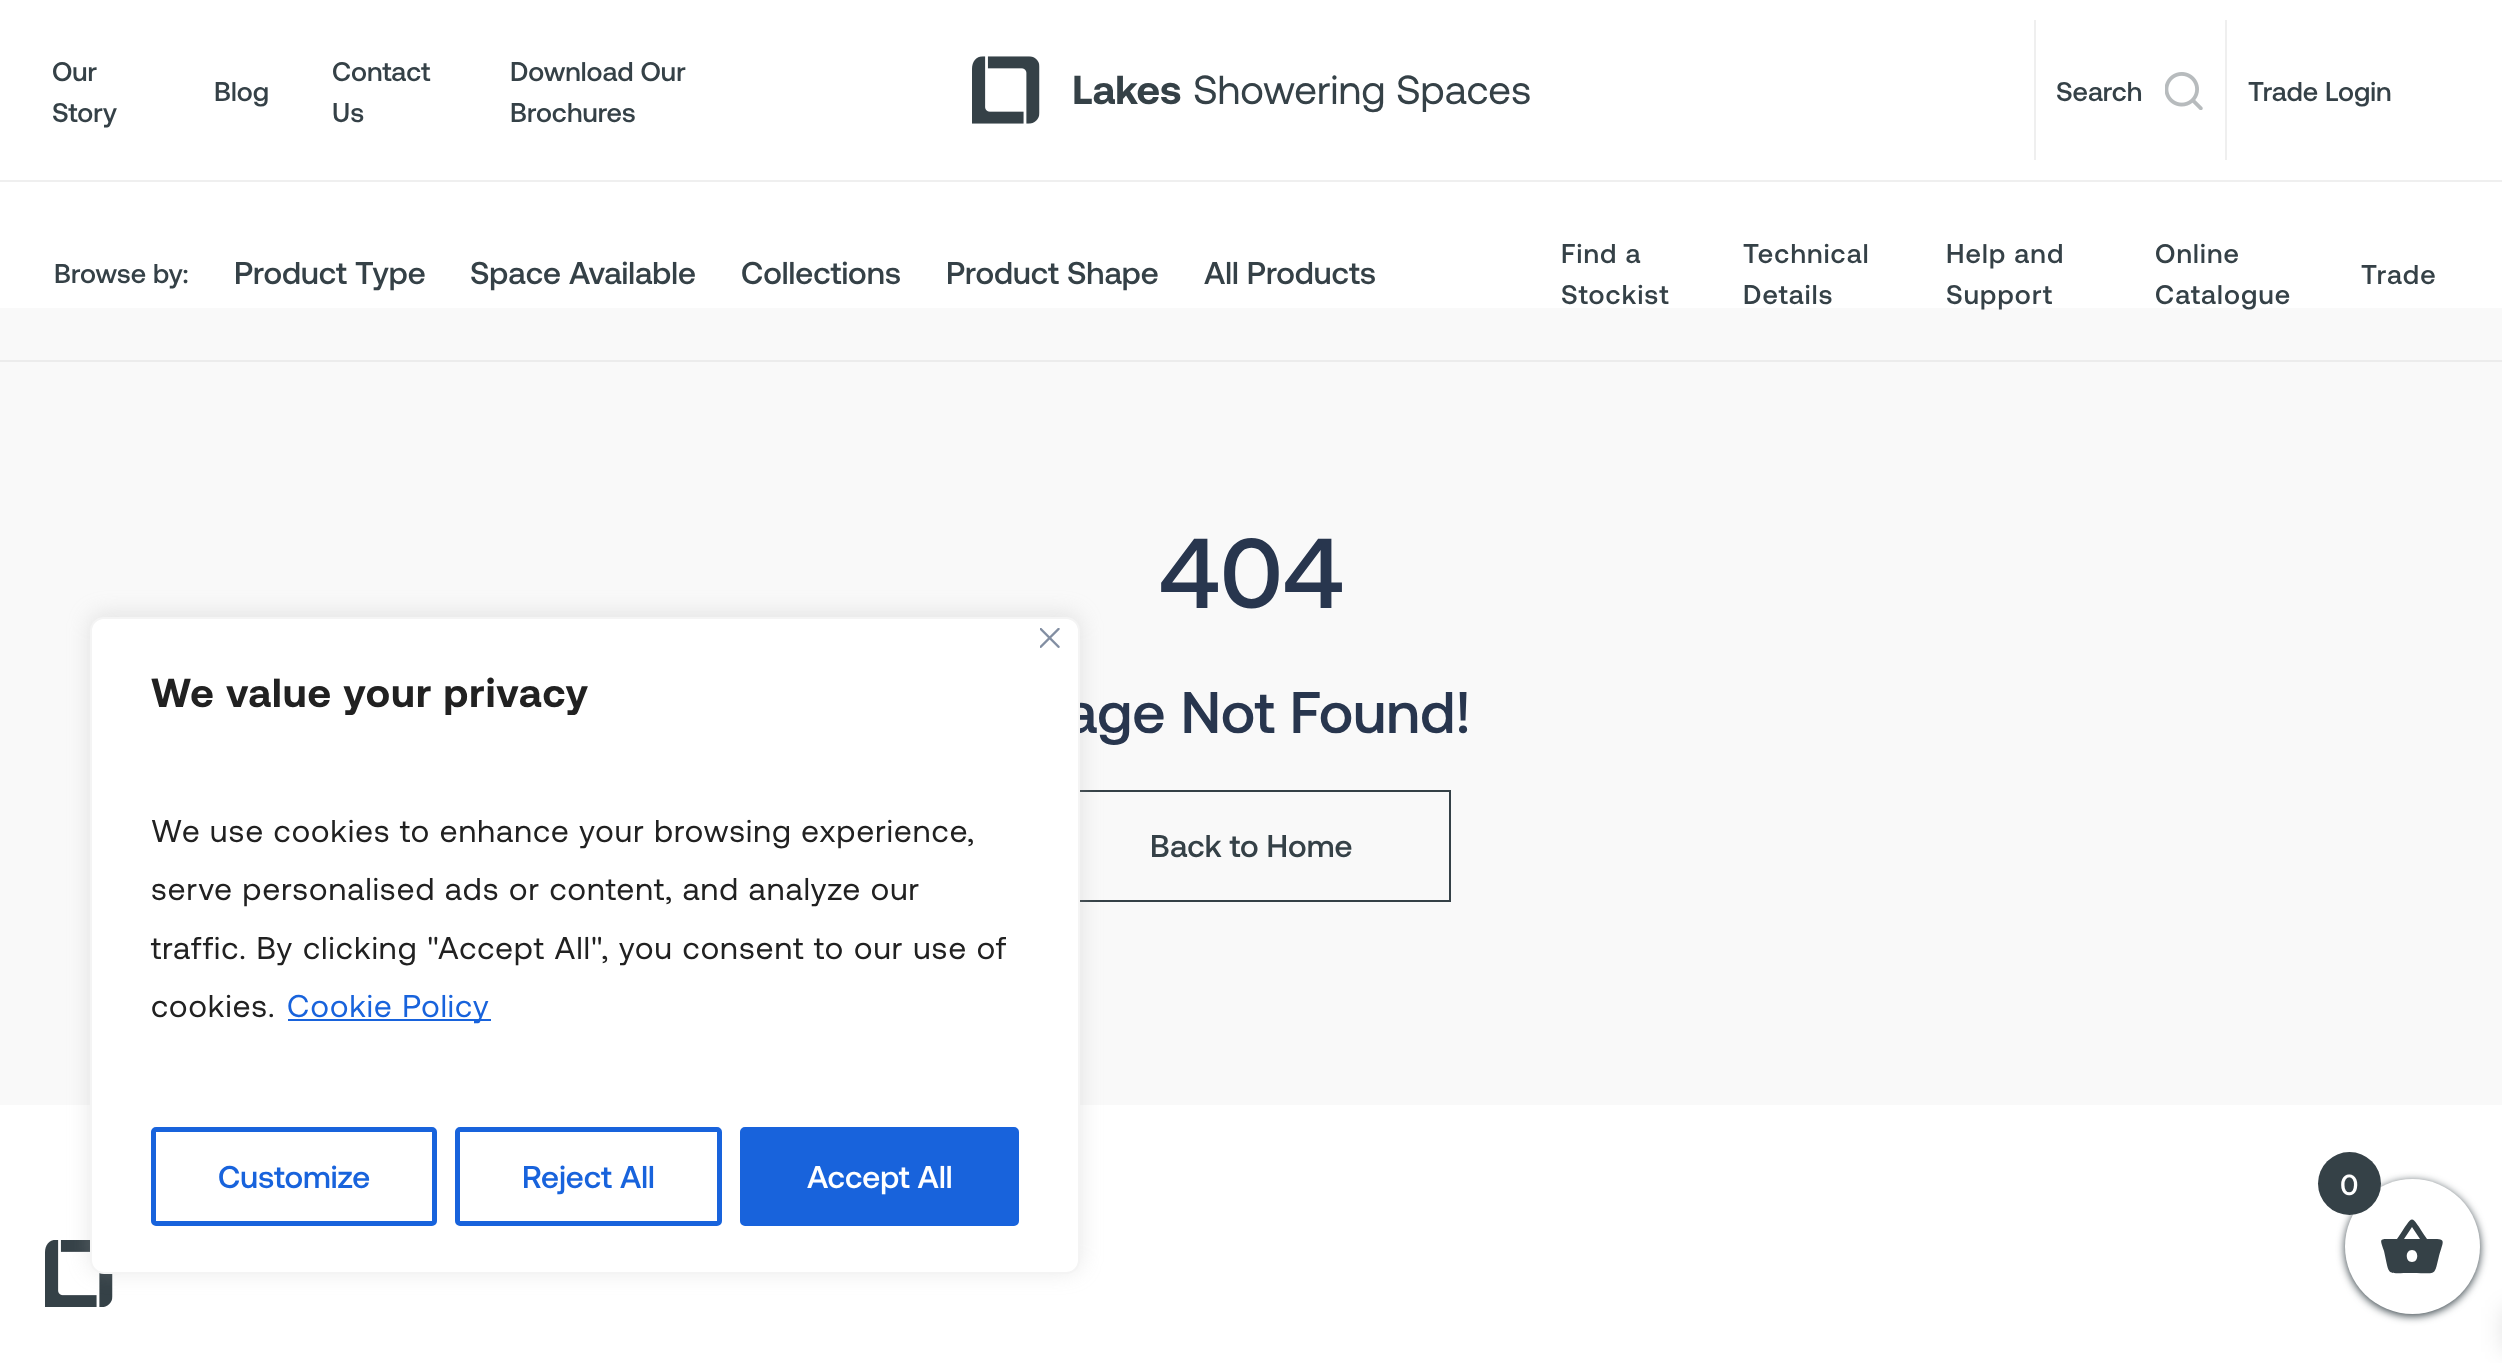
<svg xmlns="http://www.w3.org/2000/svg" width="2502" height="1363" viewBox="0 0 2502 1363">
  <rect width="100%" height="100%" fill="#fff"/>
  <path d="M0 180h2502v2H0z" fill="#efefef"/>
  <image x="972" y="56" width="68" height="68" href="img/1.png"/>
  <path d="M2034 20h2v140H2034z" fill="#efefef"/>
  <image x="2165" y="72" width="38" height="38" href="img/2.png"/>
  <path d="M2225 20h2v140H2225z" fill="#efefef"/>
  <path d="M0 308h2502v797H0z" fill="#f9f9f9"/>
  <path d="M0 360h2502v2H0z" fill="#ececec"/>
  <path d="M1052 791h398v110H1052z" fill="none" stroke="#354147" stroke-width="2"/>
  <image x="45" y="1240" width="68" height="67" href="img/4.png"/>
  <rect x="90" y="614" width="990" height="657" rx="14" fill="#acabab4d" filter="blur(11px)"/>
  <rect x="2345" y="1181" width="135" height="135" rx="67.5" fill="#354147" filter="blur(4.5px)"/>
  <path d="M2502 1307h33v45H2502z" fill="#0000001a" filter="blur(11px)"/>
  <circle cx="2412.5" cy="1246.5" r="67.5" fill="#fff"/>
  <circle cx="2349.5" cy="1183.5" r="31.5" fill="#354147"/>
  <path d="M2412 1262C2419 1262 2419 1250 2412 1250C2405 1250 2405 1262 2412 1262ZM2404 1239H2420L2412 1227ZM2427 1239C2447 1239 2444 1238 2439 1256C2434 1277 2437 1273 2412 1273C2385 1273 2390 1277 2384 1251C2379 1237 2379 1239 2397 1239C2415 1213 2409 1213 2427 1239Z" fill="#354147"/>
  <g font-family="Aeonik" font-size="27" font-weight="500" fill="#354147">
    <text x="52" y="81">Our</text>
    <text x="52" y="122">Story</text>
    <text x="214" y="101">Blog</text>
    <text x="332" y="81">Contact</text>
    <text x="332" y="122">Us</text>
    <text x="510" y="81">Download Our</text>
    <text x="510" y="122">Brochures</text>
  </g>
  <text x="1072" y="104" font-family="Aeonik" font-size="40.5" font-weight="bold" fill="#354147">Lakes</text>
  <text x="1193" y="104" font-family="Aeonik" font-size="40.5" fill="#354147">Showering Spaces</text>
  <g font-family="Aeonik" font-size="27" font-weight="500" fill="#354147">
    <text x="2056" y="101">Search</text>
    <text x="2248" y="101">Trade Login</text>
    <text x="54" y="283">Browse by:</text>
  </g>
  <g font-family="Aeonik" font-size="31.5" font-weight="500" fill="#354147">
    <text x="234" y="284">Product Type</text>
    <text x="470" y="284">Space Available</text>
    <text x="741" y="284">Collections</text>
    <text x="946" y="284">Product Shape</text>
    <text x="1204" y="284">All Products</text>
  </g>
  <g font-family="Aeonik" font-size="27" font-weight="500" letter-spacing="1.12" fill="#354147">
    <text x="1561" y="263">Find a</text>
    <text x="1561" y="304">Stockist</text>
    <text x="1743" y="263">Technical</text>
    <text x="1743" y="304">Details</text>
    <text x="1946" y="263">Help and</text>
    <text x="1946" y="304">Support</text>
    <text x="2155" y="263">Online</text>
    <text x="2155" y="304">Catalogue</text>
    <text x="2361" y="284">Trade</text>
  </g>
  <text x="1159" y="608" font-family="Aeonik" font-size="99" font-weight="500" fill="#28364e">404</text>
  <text x="1065" y="733" font-family="Aeonik" font-size="58.5" font-weight="500" fill="#28364e">age Not Found!</text>
  <rect x="91" y="618" width="988" height="655" rx="13" fill="#fff" stroke="#f4f4f4" stroke-width="2"/>
  <image x="1040" y="628" width="20" height="20" href="img/3.png"/>
  <rect x="742.5" y="1129.5" width="274" height="94" rx="2.5" fill="#1863dc" stroke="#1863dc" stroke-width="5"/>
  <text x="807" y="1188" font-family="Aeonik" font-size="31.5" font-weight="500" fill="#fff">Accept All</text>
  <rect x="457.5" y="1129.5" width="262" height="94" rx="2.5" fill="none" stroke="#1863dc" stroke-width="5"/>
  <text x="522" y="1188" font-family="Aeonik" font-size="31.5" font-weight="500" fill="#1863dc">Reject All</text>
  <rect x="153.5" y="1129.5" width="281" height="94" rx="2.5" fill="none" stroke="#1863dc" stroke-width="5"/>
  <text x="218" y="1188" font-family="Aeonik" font-size="31.5" font-weight="500" fill="#1863dc">Customize</text>
  <path d="M288 1019h203v2H288z" fill="#1863dc"/>
  <text x="287" y="1017" font-family="Aeonik" font-size="31.5" letter-spacing="1.12" fill="#1863dc">Cookie Policy</text>
  <g font-family="Aeonik" font-size="31.5" letter-spacing="1.12" fill="#212121">
    <text x="151" y="1017">cookies.</text>
    <text x="151" y="959" word-spacing="0.25">traffic. By clicking "Accept All", you consent to our use of</text>
    <text x="151" y="900">serve personalised ads or content, and analyze our</text>
    <text x="151" y="842">We use cookies to enhance your browsing experience,</text>
  </g>
  <text x="151" y="707" font-family="Aeonik" font-size="40.5" font-weight="bold" letter-spacing="1.12" fill="#212121">We value your privacy</text>
  <text x="1150" y="857" font-family="Aeonik" font-size="31.5" font-weight="500" fill="#354147">Back to Home</text>
  <text x="2340" y="1195" font-family="Aeonik" font-size="29" font-weight="500" fill="#fff">0</text>
</svg>
